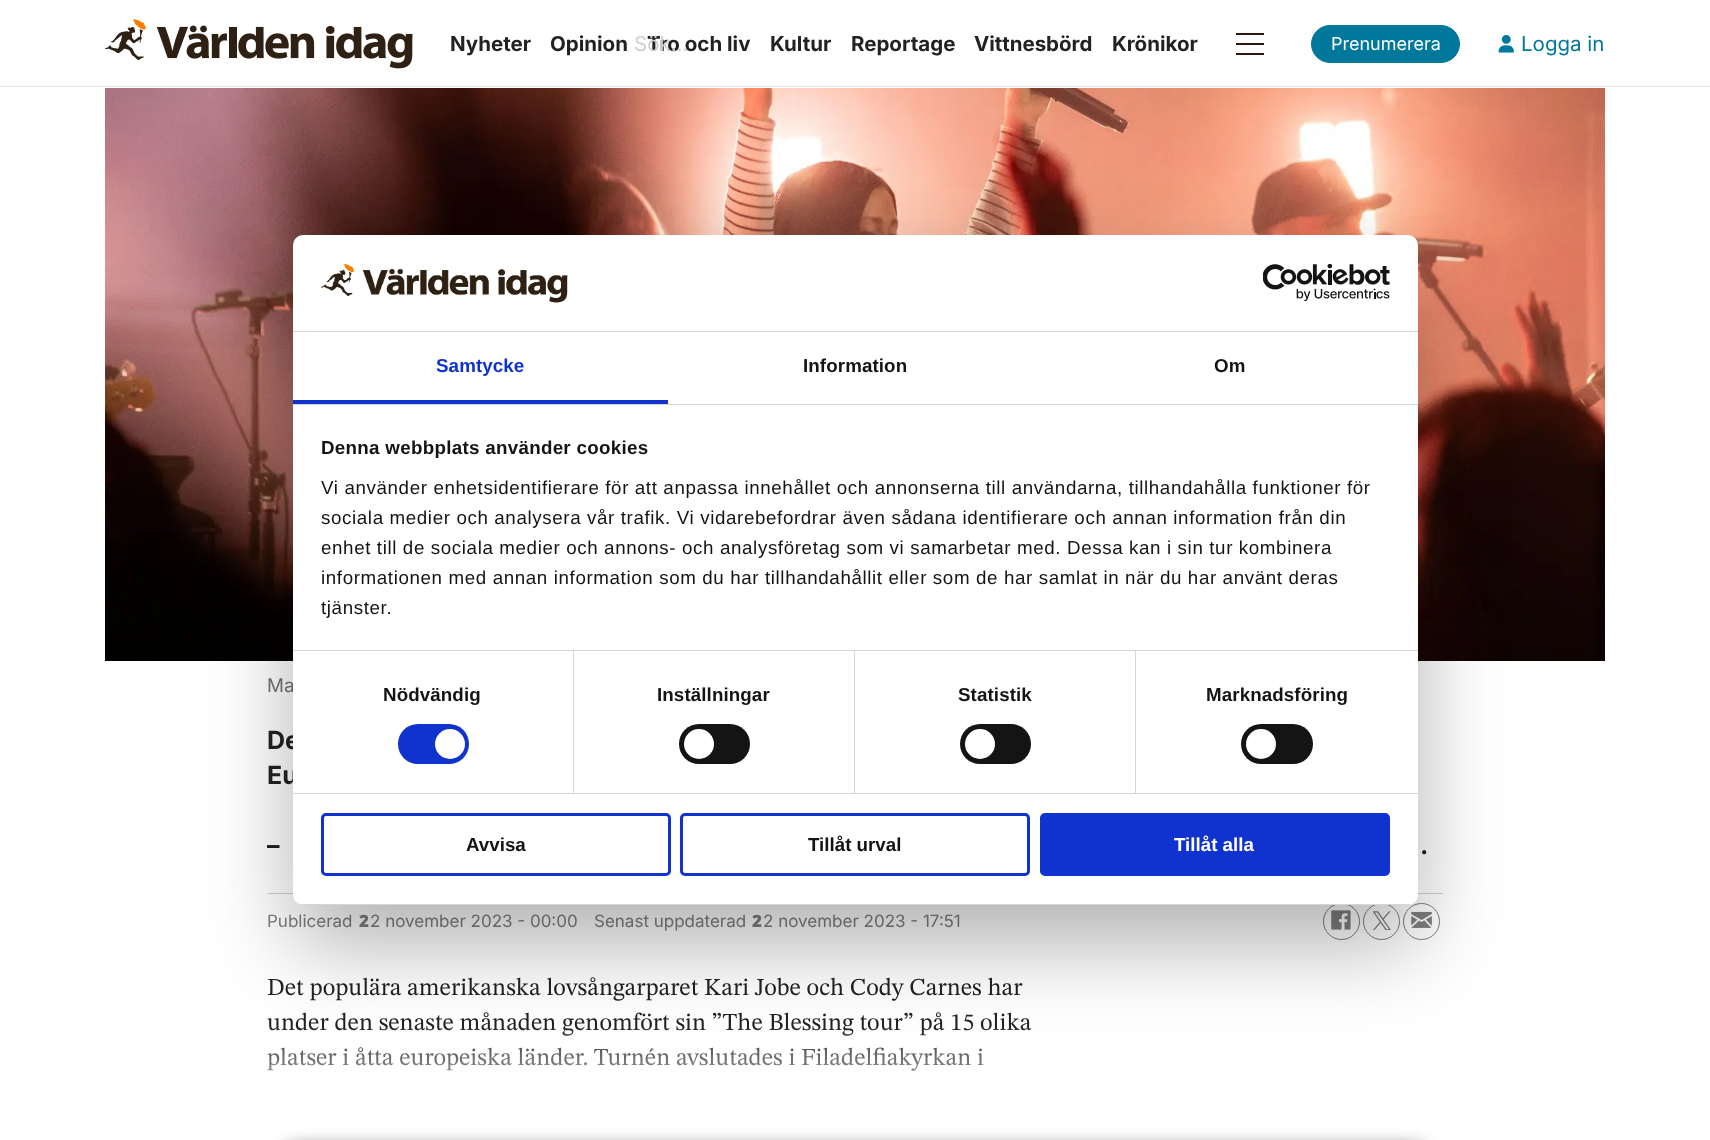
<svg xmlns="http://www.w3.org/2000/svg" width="1710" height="1140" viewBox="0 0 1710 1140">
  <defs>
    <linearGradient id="g1" gradientUnits="userSpaceOnUse" x1="855" y1="1121" x2="855" y2="961"><stop offset="0" stop-color="#fff"/><stop offset="0.6" stop-color="#fff" stop-opacity="0"/><stop offset="1" stop-color="#fff" stop-opacity="0"/></linearGradient>
    <clipPath id="clip1"><rect x="293" y="235" width="1125" height="670" rx="10"/></clipPath>
  </defs>
  <rect width="100%" height="100%" fill="#fff"/>
  <path d="M0 86h1710v1H0z" fill="#e5e5e5"/>
  <image x="105" y="19" width="308" height="50" href="img/1.png"/>
  <path d="M1236 33h28v2H1236z" fill="#32150d"/>
  <path d="M1236 43h28v2H1236z" fill="#32150d"/>
  <path d="M1236 53h28v2H1236z" fill="#32150d"/>
  <rect x="1311.5" y="25.5" width="148" height="37" rx="18.5" fill="#00789b" stroke="#00789b"/>
  <image x="1498" y="35" width="16" height="18" href="img/2.png"/>
  <image x="105" y="88" width="1500" height="573" href="img/5.png"/>
  <path d="M268 893h1175v1H268z" fill="#cecece"/>
  <circle cx="1341.5" cy="921.5" r="18" fill="none" stroke="#7f7f7f"/>
  <image x="1331" y="910" width="20" height="20" href="img/6.png"/>
  <circle cx="1381.5" cy="921.5" r="18" fill="none" stroke="#7f7f7f"/>
  <image x="1373" y="911" width="18" height="19" href="img/7.png"/>
  <circle cx="1421.5" cy="921.5" r="18" fill="none" stroke="#7f7f7f"/>
  <image x="1411" y="911" width="21" height="17" href="img/8.png"/>
  <path d="M289 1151h1132v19H289z" fill="#000" filter="blur(10px)"/>
  <g font-family="Inter" font-size="20.5" font-weight="bold" fill="#222">
    <text x="450" y="51">Nyheter</text>
    <text x="550" y="51">Opinion</text>
    <text x="647" y="51">Tro och liv</text>
    <text x="770" y="51">Kultur</text>
    <text x="851" y="51">Reportage</text>
    <text x="974" y="51">Vittnesbörd</text>
    <text x="1112" y="51">Krönikor</text>
  </g>
  <text x="634" y="51" font-family="Inter" font-size="20.5" fill="#cecece">Sök...</text>
  <text x="1331" y="50" font-family="Inter" font-size="18" fill="#fff">Prenumerera</text>
  <text x="1521" y="51" font-family="Inter" font-size="20.5" fill="#00789b">Logga in</text>
  <text x="267" y="692" font-family="Inter" font-size="18.75" fill="#737373">Ma</text>
  <g font-family="Inter" font-size="25" font-weight="bold" fill="#222">
    <text x="267" y="749">De</text>
    <text x="267" y="784">Eu</text>
    <text x="267" y="854">–</text>
    <text x="1420" y="854">.</text>
  </g>
  <text x="267" y="927" font-family="Inter" font-size="17" fill="#7f7f7f">Publicerad</text>
  <text x="359" y="927" font-family="Noto Sans" font-size="17" font-weight="900" fill="#7f7f7f">2</text>
  <g font-family="Inter" font-size="17" fill="#7f7f7f">
    <text x="370" y="927">2 november 2023 - 00:00</text>
    <text x="594" y="927">Senast uppdaterad</text>
  </g>
  <text x="752" y="927" font-family="Noto Sans" font-size="17" font-weight="900" fill="#7f7f7f">2</text>
  <text x="763" y="927" font-family="Inter" font-size="17" fill="#7f7f7f">2 november 2023 - 17:51</text>
  <g font-family="STIX Two Text" font-size="24.4" fill="#222">
    <text x="267" y="995">Det populära amerikanska lovsångarparet Kari Jobe och Cody Carnes har</text>
    <text x="267" y="1030">under den senaste månaden genomfört sin ”The Blessing tour” på 15 olika</text>
    <text x="267" y="1065">platser i åtta europeiska länder. Turnén avslutades i Filadelfiakyrkan i</text>
  </g>
  <path d="M268 1027h763v44H268z" fill="url(#g1)"/>
  <rect x="293" y="275" width="1125" height="670" rx="10" fill="#0000004d" filter="blur(42.5px)"/>
  <rect x="293" y="235" width="1125" height="670" rx="10" fill="#fff"/>
  <rect x="1041.5" y="814.5" width="347" height="60" rx="3.5" fill="#1032cf" stroke="#1032cf" stroke-width="3"/>
  <text x="1174" y="851" font-family="Liberation Sans" font-size="18.75" font-weight="bold" fill="#fff">Tillåt alla</text>
  <rect x="681.5" y="814.5" width="347" height="60" rx="3.5" fill="none" stroke="#1032cf" stroke-width="3"/>
  <text x="808" y="851" font-family="Liberation Sans" font-size="18.75" font-weight="bold" fill="#141414">Tillåt urval</text>
  <rect x="322.5" y="814.5" width="347" height="60" rx="3.5" fill="none" stroke="#1032cf" stroke-width="3"/>
  <text x="466" y="851" font-family="Liberation Sans" font-size="18.75" font-weight="bold" fill="#141414">Avvisa</text>
  <g clip-path="url(#clip1)">
    <path d="M293 904h1125v1H293z" fill="#d6d6d6"/>
  </g>
  <rect x="1241" y="724" width="72" height="40" rx="20" fill="#141414"/>
  <circle cx="1261" cy="744" r="15" fill="#fff"/>
  <rect x="960" y="724" width="71" height="40" rx="20" fill="#141414"/>
  <circle cx="980" cy="744" r="15" fill="#fff"/>
  <rect x="679" y="724" width="71" height="40" rx="20" fill="#141414"/>
  <circle cx="699" cy="744" r="15" fill="#fff"/>
  <rect x="398" y="724" width="71" height="40" rx="20" fill="#1032cf"/>
  <circle cx="450" cy="744" r="15" fill="#fff"/>
  <g font-family="Liberation Sans" font-size="18.75" letter-spacing="0.62" fill="#141414">
    <text x="321" y="614">tjänster.</text>
    <text x="321" y="584">informationen med annan information som du har tillhandahållit eller som de har samlat in när du har använt deras</text>
    <text x="321" y="554">enhet till de sociala medier och annons- och analysföretag som vi samarbetar med. Dessa kan i sin tur kombinera</text>
    <text x="321" y="524">sociala medier och analysera vår trafik. Vi vidarebefordrar även sådana identifierare och annan information från din</text>
    <text x="321" y="494">Vi använder enhetsidentifierare för att anpassa innehållet och annonserna till användarna, tillhandahålla funktioner för</text>
  </g>
  <text x="321" y="454" font-family="Liberation Sans" font-size="18.75" font-weight="bold" letter-spacing="0.3" fill="#141414">Denna webbplats använder cookies</text>
  <path d="M293 650h1125v1H293z" fill="#d6d6d6"/>
  <g font-family="Liberation Sans" font-size="18.75" font-weight="bold" letter-spacing="0.1" fill="#141414">
    <text x="1214" y="372">Om</text>
    <text x="803" y="372">Information</text>
  </g>
  <text x="436" y="372" font-family="Liberation Sans" font-size="18.75" font-weight="bold" letter-spacing="0.1" fill="#1032cf">Samtycke</text>
  <path d="M293 400h375v4H293z" fill="#1032cf"/>
  <path d="M293 404h1125v1H293z" fill="#d6d6d6"/>
  <g font-family="Liberation Sans" font-size="18.75" font-weight="bold" letter-spacing="0.1" fill="#141414">
    <text x="1206" y="701">Marknadsföring</text>
    <text x="958" y="701">Statistik</text>
  </g>
  <path d="M1135 651h1v142H1135z" fill="#d6d6d6"/>
  <text x="657" y="701" font-family="Liberation Sans" font-size="18.75" font-weight="bold" letter-spacing="0.1" fill="#141414">Inställningar</text>
  <path d="M854 651h1v142H854z" fill="#d6d6d6"/>
  <text x="383" y="701" font-family="Liberation Sans" font-size="18.75" font-weight="bold" letter-spacing="0.1" fill="#141414">Nödvändig</text>
  <path d="M573 651h1v142H573z" fill="#d6d6d6"/>
  <path d="M293 793h1125v1H293z" fill="#d6d6d6"/>
  <image x="1263" y="264" width="127" height="37" href="img/4.png"/>
  <image x="321" y="263" width="247" height="40" href="img/3.png"/>
  <path d="M293 331h1125v1H293z" fill="#d6d6d6"/>
</svg>
